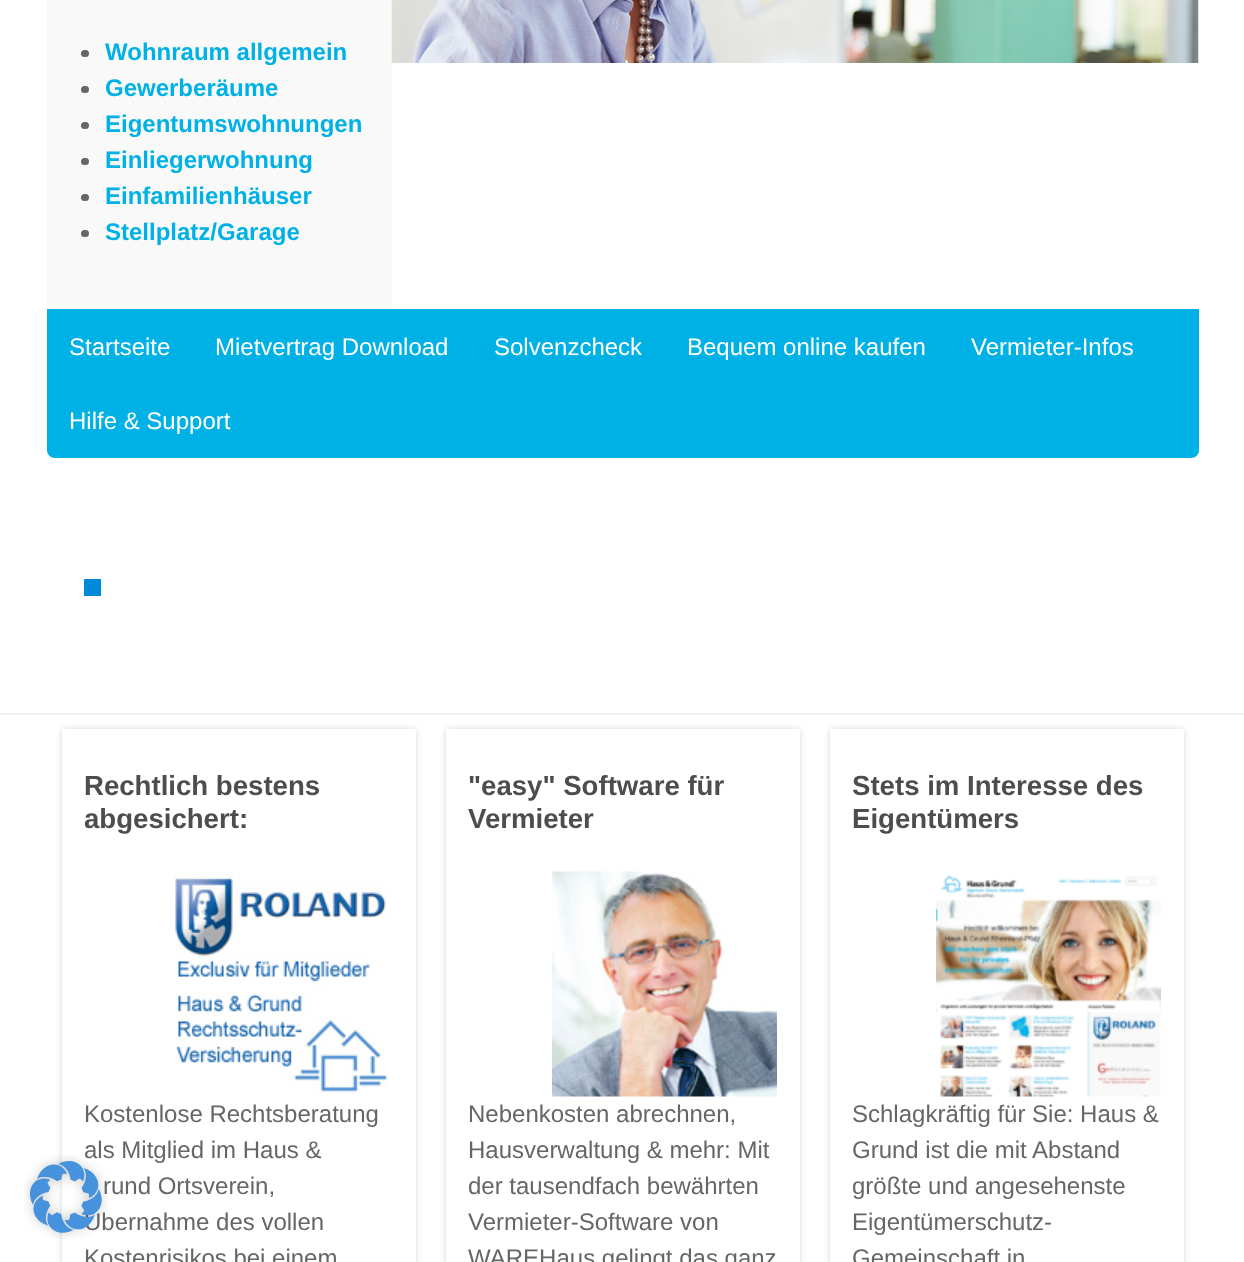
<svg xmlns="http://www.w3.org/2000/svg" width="1244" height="1262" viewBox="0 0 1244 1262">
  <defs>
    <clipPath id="clip1"><path d="M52 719H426V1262H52ZM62 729H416V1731H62Z" clip-rule="evenodd"/></clipPath>
    <clipPath id="clip2"><path d="M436 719H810V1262H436ZM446 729H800V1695H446Z" clip-rule="evenodd"/></clipPath>
    <clipPath id="clip3"><path d="M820 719H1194V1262H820ZM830 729H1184V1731H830Z" clip-rule="evenodd"/></clipPath>
  </defs>
  <rect width="100%" height="100%" fill="#fff"/>
  <path d="M47 0h345v309H47z" fill="#f9f9f9"/>
  <image x="391" y="0" width="808" height="63" href="img/2.png"/>
  <rect x="81" y="50" width="8" height="7" rx="3.5" fill="#666"/>
  <rect x="81" y="86" width="8" height="7" rx="3.5" fill="#666"/>
  <rect x="81" y="122" width="8" height="7" rx="3.5" fill="#666"/>
  <rect x="81" y="158" width="8" height="7" rx="3.5" fill="#666"/>
  <rect x="81" y="194" width="8" height="7" rx="3.5" fill="#666"/>
  <rect x="81" y="230" width="8" height="7" rx="3.5" fill="#666"/>
  <path d="M47 309H1199V450C1199 454.5 1195.5 458 1191 458H55C50.5 458 47 454.5 47 450Z" fill="#00b1e6"/>
  <path d="M84 579h17v17H84z" fill="#008ad9"/>
  <path d="M0 713h1244v2H0z" fill="#f2f2f2"/>
  <g clip-path="url(#clip1)">
    <path d="M62 729h354v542H62z" fill="#00000026" filter="blur(3px)"/>
  </g>
  <image x="175" y="871" width="213" height="222" href="img/3.png"/>
  <g clip-path="url(#clip2)">
    <path d="M446 729h354v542H446z" fill="#00000026" filter="blur(3px)"/>
  </g>
  <image x="552" y="871" width="225" height="226" href="img/4.png"/>
  <g clip-path="url(#clip3)">
    <path d="M830 729h354v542H830z" fill="#00000026" filter="blur(3px)"/>
  </g>
  <image x="936" y="875" width="225" height="222" href="img/5.png"/>
  <g font-family="Liberation Sans" font-size="24" font-weight="bold" fill="#00b1e6">
    <text x="105" y="60">Wohnraum allgemein</text>
    <text x="105" y="96">Gewerberäume</text>
    <text x="105" y="132">Eigentumswohnungen</text>
    <text x="105" y="168">Einliegerwohnung</text>
    <text x="105" y="204">Einfamilienhäuser</text>
    <text x="105" y="240">Stellplatz/Garage</text>
  </g>
  <g font-family="Liberation Sans" font-size="24" fill="#fff">
    <text x="69" y="355">Startseite</text>
    <text x="215" y="355">Mietvertrag Download</text>
    <text x="494" y="355">Solvenzcheck</text>
    <text x="687" y="355">Bequem online kaufen</text>
    <text x="971" y="355">Vermieter-Infos</text>
    <text x="69" y="429">Hilfe &amp; Support</text>
  </g>
  <g font-family="Liberation Sans" font-size="27.6" font-weight="bold" fill="#4d4d4d">
    <text x="84" y="795">Rechtlich bestens</text>
    <text x="84" y="828">abgesichert:</text>
  </g>
  <g font-family="Liberation Sans" font-size="24" fill="#666">
    <text x="84" y="1122">Kostenlose Rechtsberatung</text>
    <text x="84" y="1158">als Mitglied im Haus &amp;</text>
    <text x="103" y="1194">rund Ortsverein,</text>
    <text x="84" y="1230">Übernahme des vollen</text>
  </g>
  <image x="24" y="1155" width="84" height="84" href="img/1.png"/>
  <text x="84" y="1266" font-family="Liberation Sans" font-size="24" fill="#666">Kostenrisikos bei einem</text>
  <g font-family="Liberation Sans" font-size="27.6" font-weight="bold" fill="#4d4d4d">
    <text x="468" y="795">"easy" Software für</text>
    <text x="468" y="828">Vermieter</text>
  </g>
  <g font-family="Liberation Sans" font-size="24" fill="#666">
    <text x="468" y="1122">Nebenkosten abrechnen,</text>
    <text x="468" y="1158">Hausverwaltung &amp; mehr: Mit</text>
    <text x="468" y="1194">der tausendfach bewährten</text>
    <text x="468" y="1230">Vermieter-Software von</text>
    <text x="468" y="1266">WAREHaus gelingt das ganz</text>
  </g>
  <g font-family="Liberation Sans" font-size="27.6" font-weight="bold" fill="#4d4d4d">
    <text x="852" y="795">Stets im Interesse des</text>
    <text x="852" y="828">Eigentümers</text>
  </g>
  <g font-family="Liberation Sans" font-size="24" fill="#666">
    <text x="852" y="1122">Schlagkräftig für Sie: Haus &amp;</text>
    <text x="852" y="1158">Grund ist die mit Abstand</text>
    <text x="852" y="1194">größte und angesehenste</text>
    <text x="852" y="1230">Eigentümerschutz-</text>
    <text x="852" y="1266">Gemeinschaft in</text>
  </g>
</svg>
